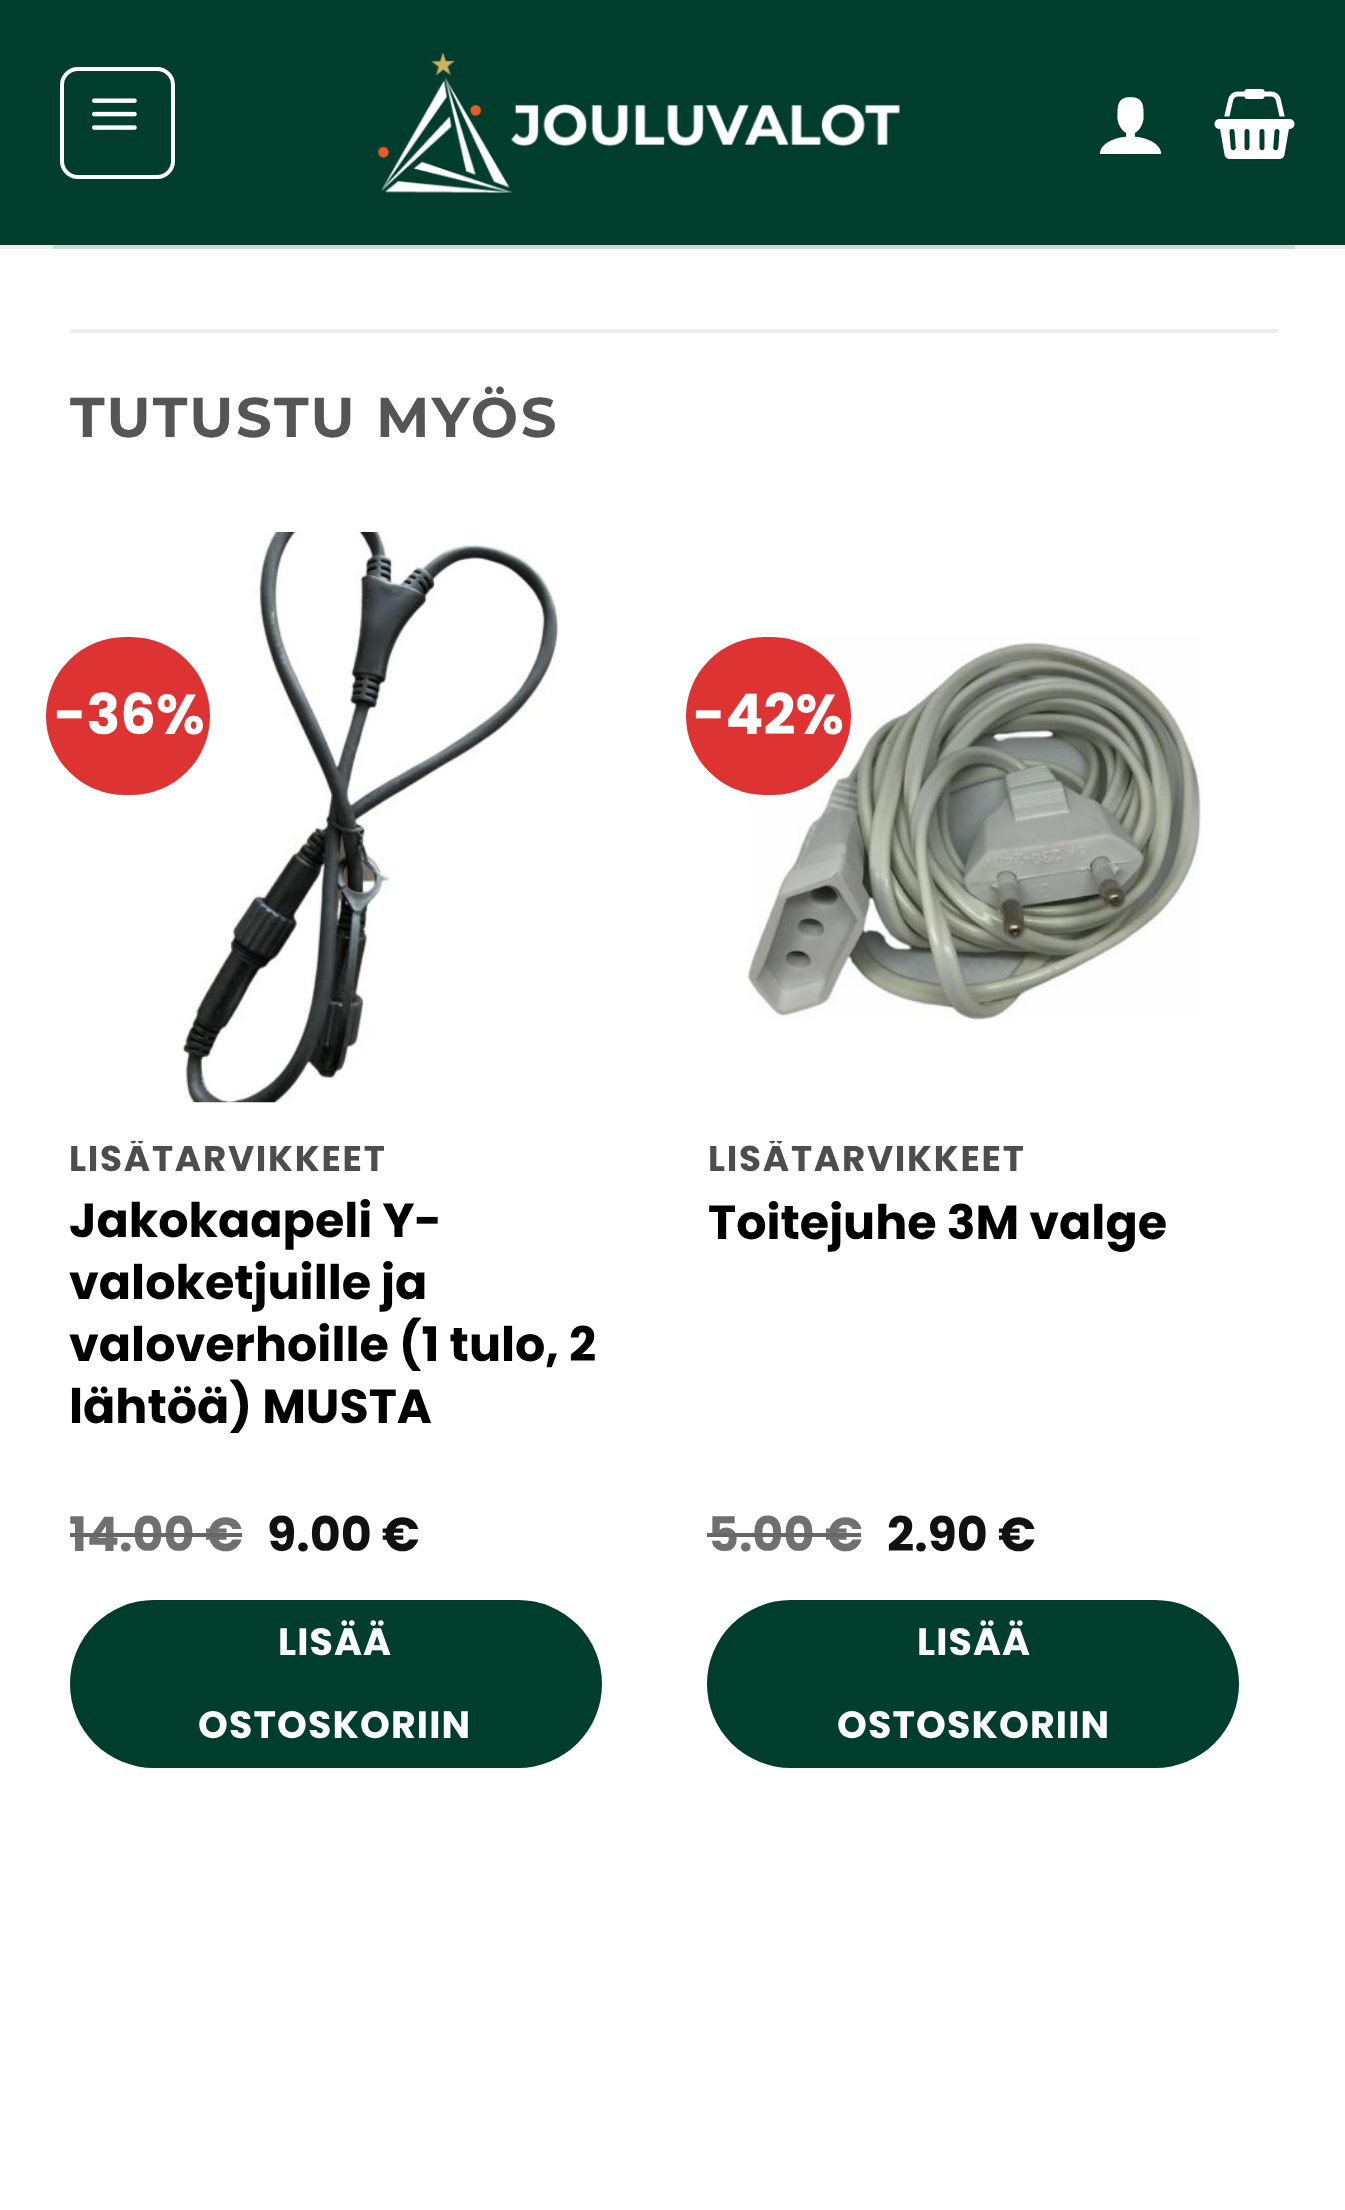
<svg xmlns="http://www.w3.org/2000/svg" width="1345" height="2210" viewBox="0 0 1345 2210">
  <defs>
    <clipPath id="clip1"><path d="M70 1141h571v42H70z"/></clipPath>
    <clipPath id="clip2"><path d="M707 1141h571v42H707z"/></clipPath>
  </defs>
  <rect width="100%" height="100%" fill="#fff"/>
  <path d="M0 245h1345v4H0z" fill="#ededed"/>
  <path d="M0 0h1345v245H0z" fill="#003d2c"/>
  <rect x="62" y="69" width="111" height="108" rx="16" fill="none" stroke="#fff" stroke-width="4"/>
  <image x="92" y="98" width="45" height="32" href="img/1.png"/>
  <image x="377" y="53" width="523" height="140" href="img/2.png"/>
  <image x="1099" y="97" width="63" height="57" href="img/3.png"/>
  <image x="1214" y="89" width="81" height="70" href="img/4.png"/>
  <path d="M53 245h1242v4H53z" fill="#d5d5d5"/>
  <path d="M70 329h1208v4H70z" fill="#ececec"/>
  <image x="181" y="532" width="378" height="571" href="img/5.png"/>
  <rect x="46" y="637" width="164" height="158" rx="79" fill="#d33"/>
  <rect x="70" y="1600" width="532" height="168" rx="84" fill="#013d2c"/>
  <image x="747" y="634" width="457" height="387" href="img/6.png"/>
  <rect x="686" y="637" width="165" height="158" rx="79" fill="#d33"/>
  <rect x="707" y="1600" width="532" height="168" rx="84" fill="#013d2c"/>
  <text x="70" y="437" font-family="Montserrat" font-size="56" font-weight="bold" letter-spacing="2.75" fill="#555">TUTUSTU MYÖS</text>
  <text x="54" y="734" font-family="Poppins" font-size="56" font-weight="bold" fill="#fff">-36%</text>
  <g clip-path="url(#clip1)">
    <text x="69" y="1171" font-family="Poppins" font-size="35.75" font-weight="bold" letter-spacing="1.75" fill="#4d4d4d">LISÄTARVIKKEET</text>
  </g>
  <g font-family="Poppins" font-size="47.6" font-weight="bold" fill="#000">
    <text x="69" y="1237">Jakokaapeli Y-</text>
    <text x="69" y="1299">valoketjuille ja</text>
    <text x="69" y="1361">valoverhoille (1 tulo, 2</text>
    <text x="69" y="1423">lähtöä) MUSTA</text>
  </g>
  <text x="69" y="1551" font-family="Poppins" font-size="47.6" font-weight="bold" fill="#707070">14.00</text>
  <path d="M70 1533h137v4H70z" fill="#666"/>
  <text x="205" y="1551" font-family="Poppins" font-size="47.6" font-weight="bold" fill="#707070">€</text>
  <path d="M207 1533h35v4H207z" fill="#666"/>
  <text x="267" y="1551" font-family="Poppins" font-size="47.6" font-weight="bold" fill="#111">9.00 €</text>
  <g font-family="Poppins" font-size="38" font-weight="bold" letter-spacing="1.1" fill="#fff">
    <text x="278" y="1655">LISÄÄ</text>
    <text x="198" y="1738">OSTOSKORIIN</text>
  </g>
  <text x="693" y="734" font-family="Poppins" font-size="56" font-weight="bold" fill="#fff">-42%</text>
  <g clip-path="url(#clip2)">
    <text x="708" y="1171" font-family="Poppins" font-size="35.75" font-weight="bold" letter-spacing="1.75" fill="#4d4d4d">LISÄTARVIKKEET</text>
  </g>
  <text x="708" y="1239" font-family="Poppins" font-size="47.6" font-weight="bold" fill="#000">Toitejuhe 3M valge</text>
  <text x="708" y="1551" font-family="Poppins" font-size="47.6" font-weight="bold" fill="#707070">5.00</text>
  <path d="M707 1533h119v4H707z" fill="#666"/>
  <text x="825" y="1551" font-family="Poppins" font-size="47.6" font-weight="bold" fill="#707070">€</text>
  <path d="M826 1533h35v4H826z" fill="#666"/>
  <text x="887" y="1551" font-family="Poppins" font-size="47.6" font-weight="bold" fill="#111">2.90 €</text>
  <g font-family="Poppins" font-size="38" font-weight="bold" letter-spacing="1.1" fill="#fff">
    <text x="917" y="1655">LISÄÄ</text>
    <text x="837" y="1738">OSTOSKORIIN</text>
  </g>
</svg>
